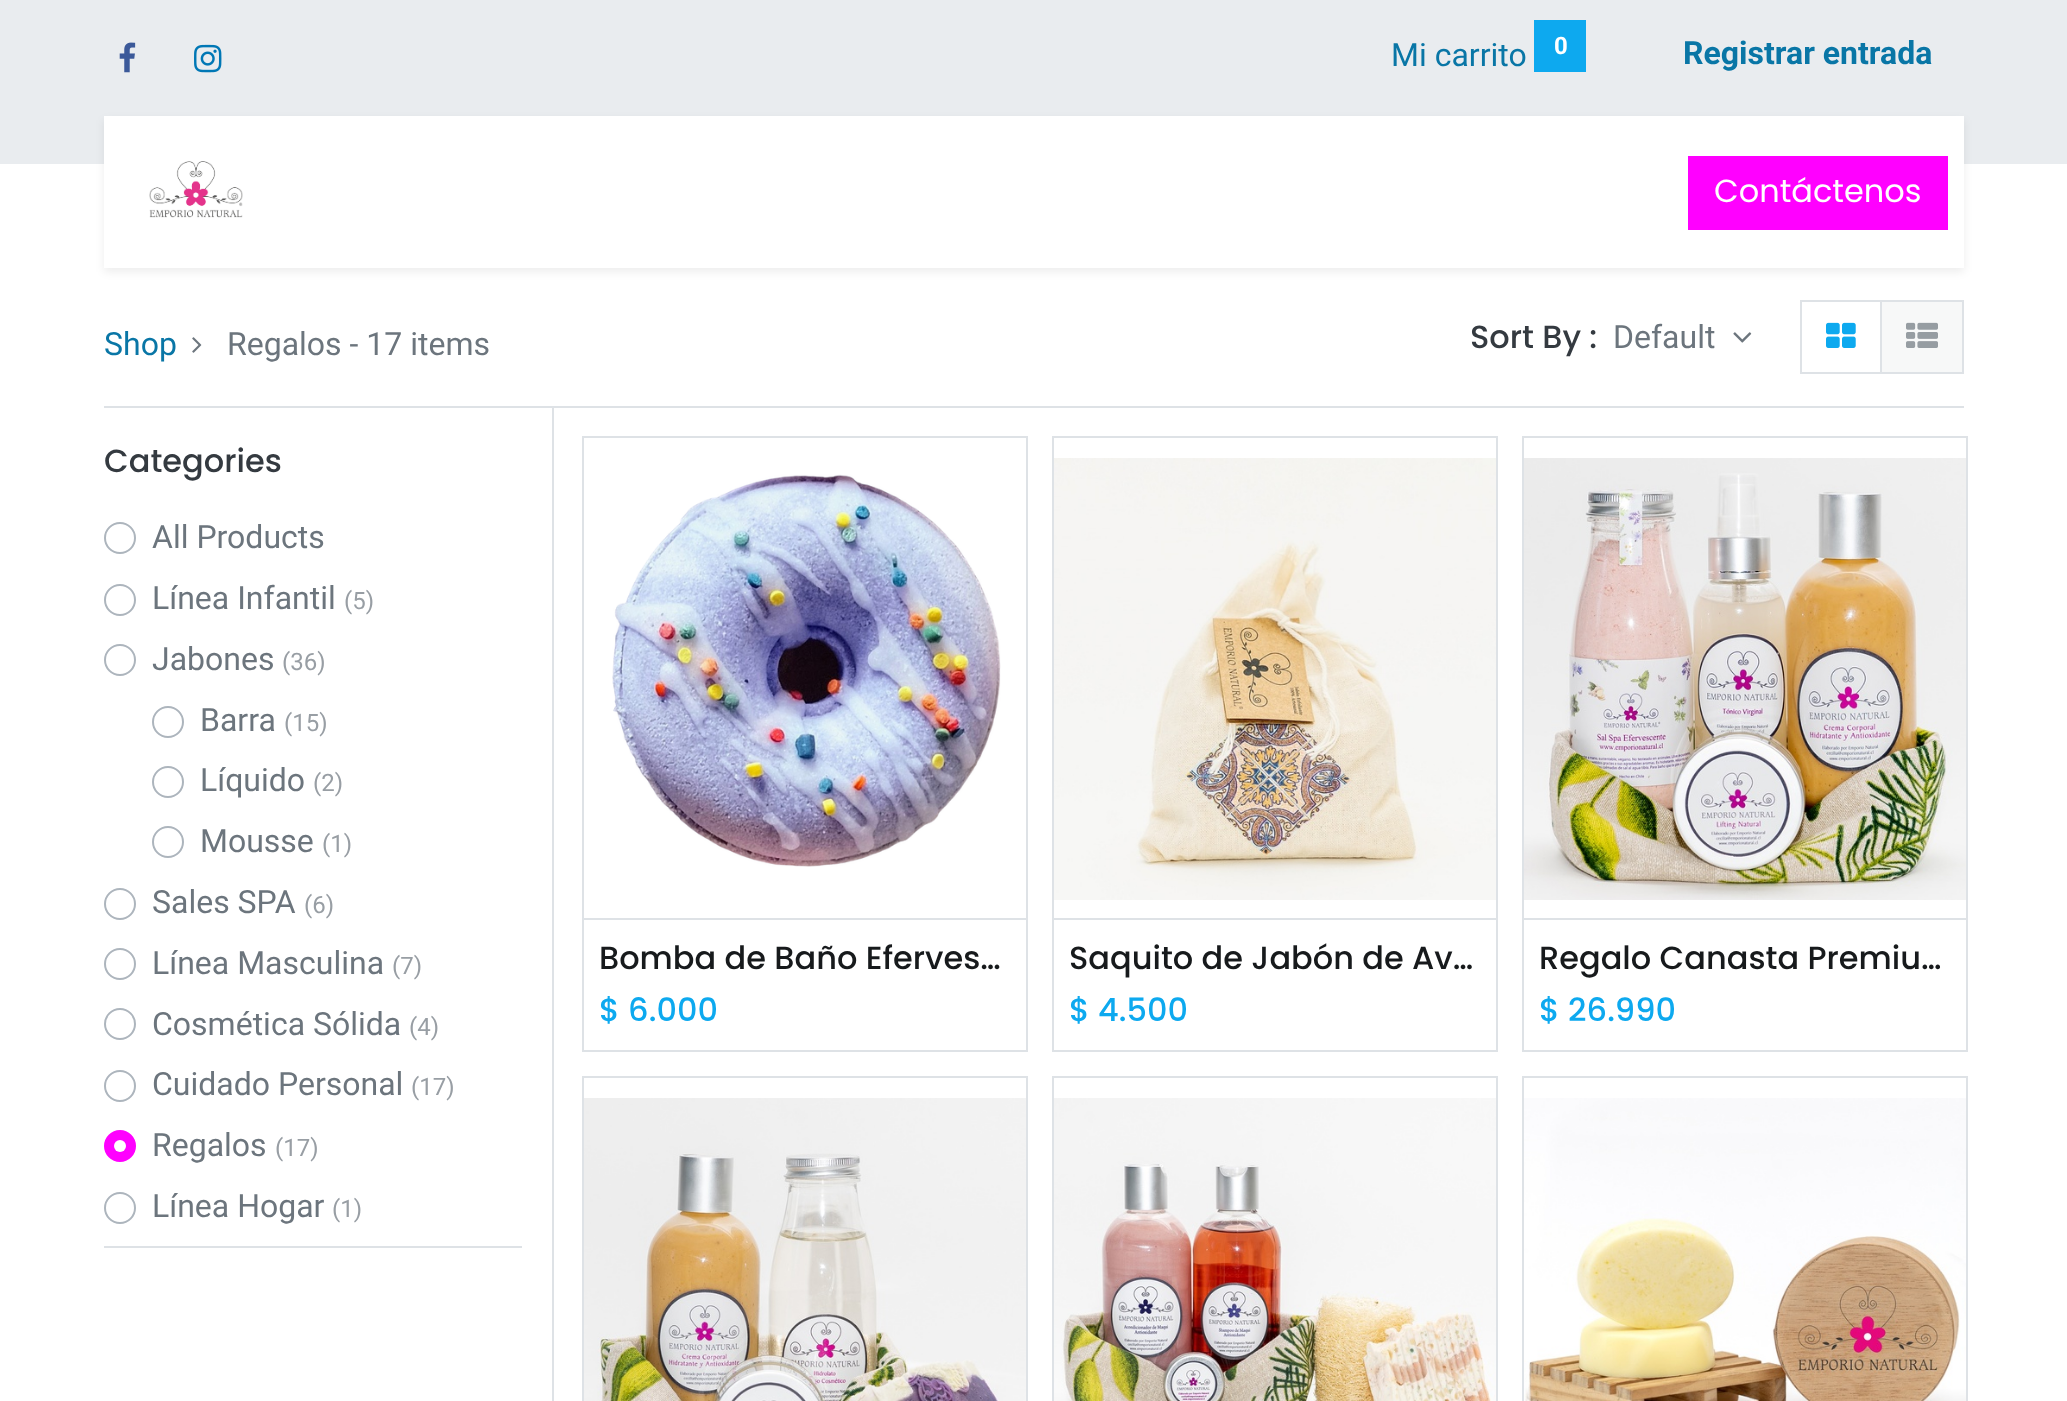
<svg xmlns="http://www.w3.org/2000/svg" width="2067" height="1401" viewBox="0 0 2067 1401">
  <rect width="100%" height="100%" fill="#fff"/>
  <path d="M0 0h2067v164H0z" fill="#e9ecef"/>
  <image x="119" y="42" width="17" height="31" href="img/1.png"/>
  <image x="194" y="44" width="28" height="29" href="img/2.png"/>
  <path d="M1534 20h52v52H1534z" fill="#0da9ef"/>
  <path d="M104 120h1860v152H104z" fill="#00000012" filter="blur(4px)"/>
  <path d="M104 116h1860v152H104z" fill="#fff"/>
  <image x="149" y="161" width="94" height="57" href="img/3.png"/>
  <path d="M1688 156h260v74H1688z" fill="#f0f"/>
  <image x="192" y="337" width="10" height="16" href="img/4.png"/>
  <image x="1733" y="332" width="19" height="11" href="img/5.png"/>
  <path d="M1881 301h82v72H1881z" fill="#f7f8f8" stroke="#dee2e6" stroke-width="2"/>
  <path d="M1801 301h80v72H1801z" fill="none" stroke="#dee2e6" stroke-width="2"/>
  <image x="1826" y="322" width="30" height="26" href="img/6.png"/>
  <image x="1906" y="322" width="32" height="26" href="img/7.png"/>
  <path d="M104 406h1860v2H104z" fill="#dee2e6"/>
  <path d="M552 408h2v993H552z" fill="#dee2e6"/>
  <path d="M104 1246h418v2H104z" fill="#dee2e6"/>
  <circle cx="120" cy="538" r="15" fill="none" stroke="#adb5bd" stroke-width="2"/>
  <circle cx="120" cy="600" r="15" fill="none" stroke="#adb5bd" stroke-width="2"/>
  <circle cx="120" cy="660" r="15" fill="none" stroke="#adb5bd" stroke-width="2"/>
  <circle cx="168" cy="722" r="15" fill="none" stroke="#adb5bd" stroke-width="2"/>
  <circle cx="168" cy="782" r="15" fill="none" stroke="#adb5bd" stroke-width="2"/>
  <circle cx="168" cy="842" r="15" fill="none" stroke="#adb5bd" stroke-width="2"/>
  <circle cx="120" cy="904" r="15" fill="none" stroke="#adb5bd" stroke-width="2"/>
  <circle cx="120" cy="964" r="15" fill="none" stroke="#adb5bd" stroke-width="2"/>
  <circle cx="120" cy="1024" r="15" fill="none" stroke="#adb5bd" stroke-width="2"/>
  <circle cx="120" cy="1086" r="15" fill="none" stroke="#adb5bd" stroke-width="2"/>
  <circle cx="120" cy="1146" r="15" fill="#f0f" stroke="#f0f" stroke-width="2"/>
  <circle cx="120" cy="1146" r="6" fill="#fff"/>
  <circle cx="120" cy="1208" r="15" fill="none" stroke="#adb5bd" stroke-width="2"/>
  <path d="M583 437h444v614H583z" fill="none" stroke="#dee2e6" stroke-width="2"/>
  <image x="612" y="474" width="389" height="393" href="img/8.png"/>
  <path d="M584 918h442v2H584z" fill="#dee2e6"/>
  <path d="M1053 437h444v614H1053z" fill="none" stroke="#dee2e6" stroke-width="2"/>
  <image x="1054" y="458" width="442" height="442" href="img/9.png"/>
  <path d="M1054 918h442v2H1054z" fill="#dee2e6"/>
  <path d="M1523 437h444v614H1523z" fill="none" stroke="#dee2e6" stroke-width="2"/>
  <image x="1524" y="458" width="442" height="442" href="img/10.png"/>
  <path d="M1524 918h442v2H1524z" fill="#dee2e6"/>
  <path d="M583 1077h444v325H583z" fill="none" stroke="#dee2e6" stroke-width="2"/>
  <image x="584" y="1098" width="442" height="303" href="img/11.png"/>
  <path d="M1053 1077h444v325H1053z" fill="none" stroke="#dee2e6" stroke-width="2"/>
  <image x="1054" y="1098" width="442" height="303" href="img/12.png"/>
  <path d="M1523 1077h444v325H1523z" fill="none" stroke="#dee2e6" stroke-width="2"/>
  <image x="1524" y="1098" width="442" height="303" href="img/13.png"/>
  <text x="1391" y="66" font-family="Roboto" font-size="32" fill="#0976a6">Mi carrito</text>
  <text x="1554" y="54" font-family="Roboto" font-size="24" font-weight="bold" fill="#fff">0</text>
  <text x="1683" y="64" font-family="Roboto" font-size="32" font-weight="bold" fill="#0976a6">Registrar entrada</text>
  <text x="1714" y="202" font-family="Poppins" font-size="32" fill="#fff">Contáctenos</text>
  <text x="104" y="355" font-family="Roboto" font-size="32" fill="#0976a6">Shop</text>
  <text x="227" y="355" font-family="Roboto" font-size="32" fill="#6c757d">Regalos - 17 items</text>
  <text x="1470" y="348" font-family="Poppins" font-size="32" font-weight="500" fill="#343a40">Sort By :</text>
  <text x="1613" y="348" font-family="Roboto" font-size="32" fill="#6c757d">Default</text>
  <text x="104" y="472" font-family="Poppins" font-size="32" font-weight="500" fill="#343a40">Categories</text>
  <g font-family="Roboto" font-size="32" fill="#6c757d">
    <text x="152" y="548">All Products</text>
    <text x="152" y="609">Línea Infantil</text>
  </g>
  <text x="344" y="609" font-family="Roboto" font-size="24" fill="#989ea4">(5)</text>
  <text x="152" y="670" font-family="Roboto" font-size="32" fill="#6c757d">Jabones</text>
  <text x="282" y="670" font-family="Roboto" font-size="24" fill="#989ea4">(36)</text>
  <text x="200" y="731" font-family="Roboto" font-size="32" fill="#6c757d">Barra</text>
  <text x="284" y="731" font-family="Roboto" font-size="24" fill="#989ea4">(15)</text>
  <text x="200" y="791" font-family="Roboto" font-size="32" fill="#6c757d">Líquido</text>
  <text x="313" y="791" font-family="Roboto" font-size="24" fill="#989ea4">(2)</text>
  <text x="200" y="852" font-family="Roboto" font-size="32" fill="#6c757d">Mousse</text>
  <text x="322" y="852" font-family="Roboto" font-size="24" fill="#989ea4">(1)</text>
  <text x="152" y="913" font-family="Roboto" font-size="32" fill="#6c757d">Sales SPA</text>
  <text x="304" y="913" font-family="Roboto" font-size="24" fill="#989ea4">(6)</text>
  <text x="152" y="974" font-family="Roboto" font-size="32" fill="#6c757d">Línea Masculina</text>
  <text x="392" y="974" font-family="Roboto" font-size="24" fill="#989ea4">(7)</text>
  <text x="152" y="1035" font-family="Roboto" font-size="32" fill="#6c757d">Cosmética Sólida</text>
  <text x="409" y="1035" font-family="Roboto" font-size="24" fill="#989ea4">(4)</text>
  <text x="152" y="1095" font-family="Roboto" font-size="32" fill="#6c757d">Cuidado Personal</text>
  <text x="411" y="1095" font-family="Roboto" font-size="24" fill="#989ea4">(17)</text>
  <text x="152" y="1156" font-family="Roboto" font-size="32" fill="#6c757d">Regalos</text>
  <text x="275" y="1156" font-family="Roboto" font-size="24" fill="#989ea4">(17)</text>
  <text x="152" y="1217" font-family="Roboto" font-size="32" fill="#6c757d">Línea Hogar</text>
  <text x="332" y="1217" font-family="Roboto" font-size="24" fill="#989ea4">(1)</text>
  <text x="599" y="969" font-family="Poppins" font-size="32" font-weight="500" fill="#171a1c">Bomba de Baño Eferves…</text>
  <text x="599" y="1021" font-family="Poppins" font-size="32" font-weight="500" fill="#0da9ef">$ 6.000</text>
  <text x="1069" y="969" font-family="Poppins" font-size="32" font-weight="500" fill="#171a1c">Saquito de Jabón de Av…</text>
  <text x="1069" y="1021" font-family="Poppins" font-size="32" font-weight="500" fill="#0da9ef">$ 4.500</text>
  <text x="1539" y="969" font-family="Poppins" font-size="32" font-weight="500" fill="#171a1c">Regalo Canasta Premiu…</text>
  <text x="1539" y="1021" font-family="Poppins" font-size="32" font-weight="500" fill="#0da9ef">$ 26.990</text>
</svg>
